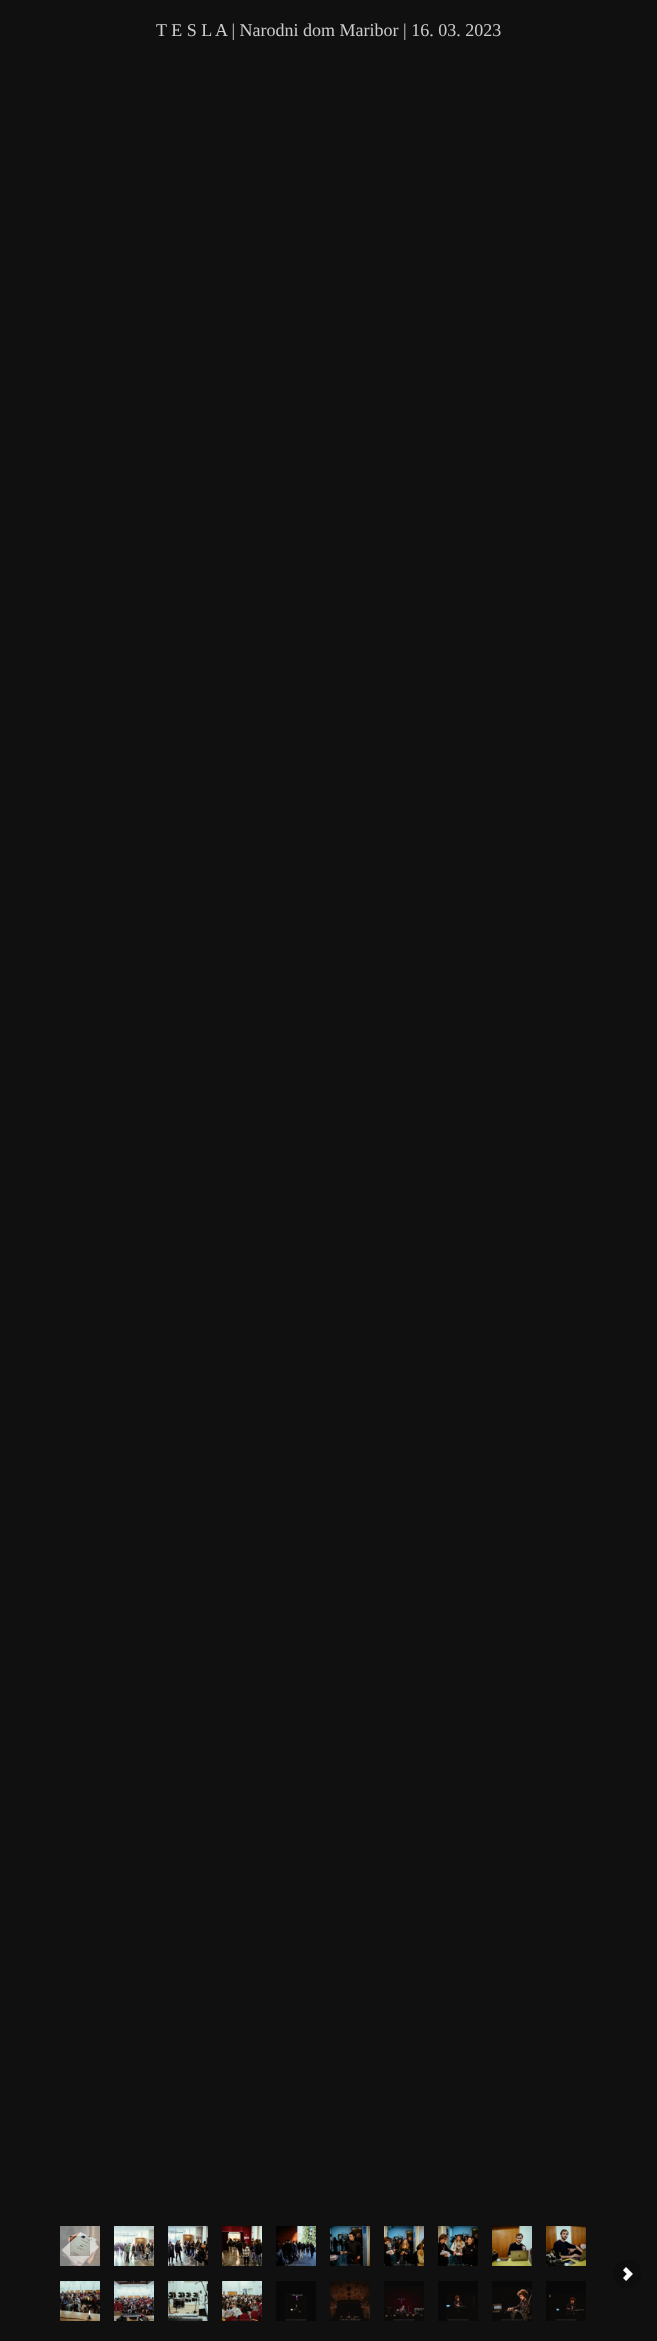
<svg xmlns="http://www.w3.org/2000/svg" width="657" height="2341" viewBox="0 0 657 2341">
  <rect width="100%" height="100%" fill="#101010"/>
  <image x="60" y="2226" width="40" height="40" href="img/1.png"/>
  <path d="M65 2231h30v30H65z" fill="none" stroke="#ffffff80" stroke-width="10"/>
  <image x="114" y="2226" width="40" height="40" href="img/2.png"/>
  <image x="168" y="2226" width="40" height="40" href="img/3.png"/>
  <image x="222" y="2226" width="40" height="40" href="img/4.png"/>
  <image x="276" y="2226" width="40" height="40" href="img/5.png"/>
  <image x="330" y="2226" width="40" height="40" href="img/6.png"/>
  <image x="384" y="2226" width="40" height="40" href="img/7.png"/>
  <image x="438" y="2226" width="40" height="40" href="img/8.png"/>
  <image x="492" y="2226" width="40" height="40" href="img/9.png"/>
  <image x="546" y="2226" width="40" height="40" href="img/10.png"/>
  <image x="60" y="2281" width="40" height="40" href="img/11.png"/>
  <image x="114" y="2281" width="40" height="40" href="img/12.png"/>
  <image x="168" y="2281" width="40" height="40" href="img/13.png"/>
  <image x="222" y="2281" width="40" height="40" href="img/14.png"/>
  <path d="M276 2281h40v40H276z" fill="#080808"/>
  <image x="285" y="2293" width="22" height="28" href="img/15.png"/>
  <image x="330" y="2281" width="40" height="40" href="img/16.png"/>
  <path d="M384 2281h40v5H384z" fill="#080808"/>
  <image x="384" y="2286" width="40" height="35" href="img/17.png"/>
  <path d="M438 2281h40v40H438z" fill="#080808"/>
  <image x="446" y="2293" width="32" height="28" href="img/18.png"/>
  <path d="M492 2281h40v6H492z" fill="#080808"/>
  <image x="492" y="2287" width="40" height="34" href="img/19.png"/>
  <path d="M546 2281h40v40H546z" fill="#080808"/>
  <image x="549" y="2293" width="37" height="28" href="img/20.png"/>
  <circle cx="627" cy="2274" r="14" fill="#0d0d0d"/>
  <image x="623" y="2267" width="10" height="14" href="img/21.png"/>
  <text x="156" y="36" font-family="Liberation Serif" font-size="18" fill="#ccc">T E S L A | Narodni dom Maribor | 16. 03. 2023</text>
</svg>
